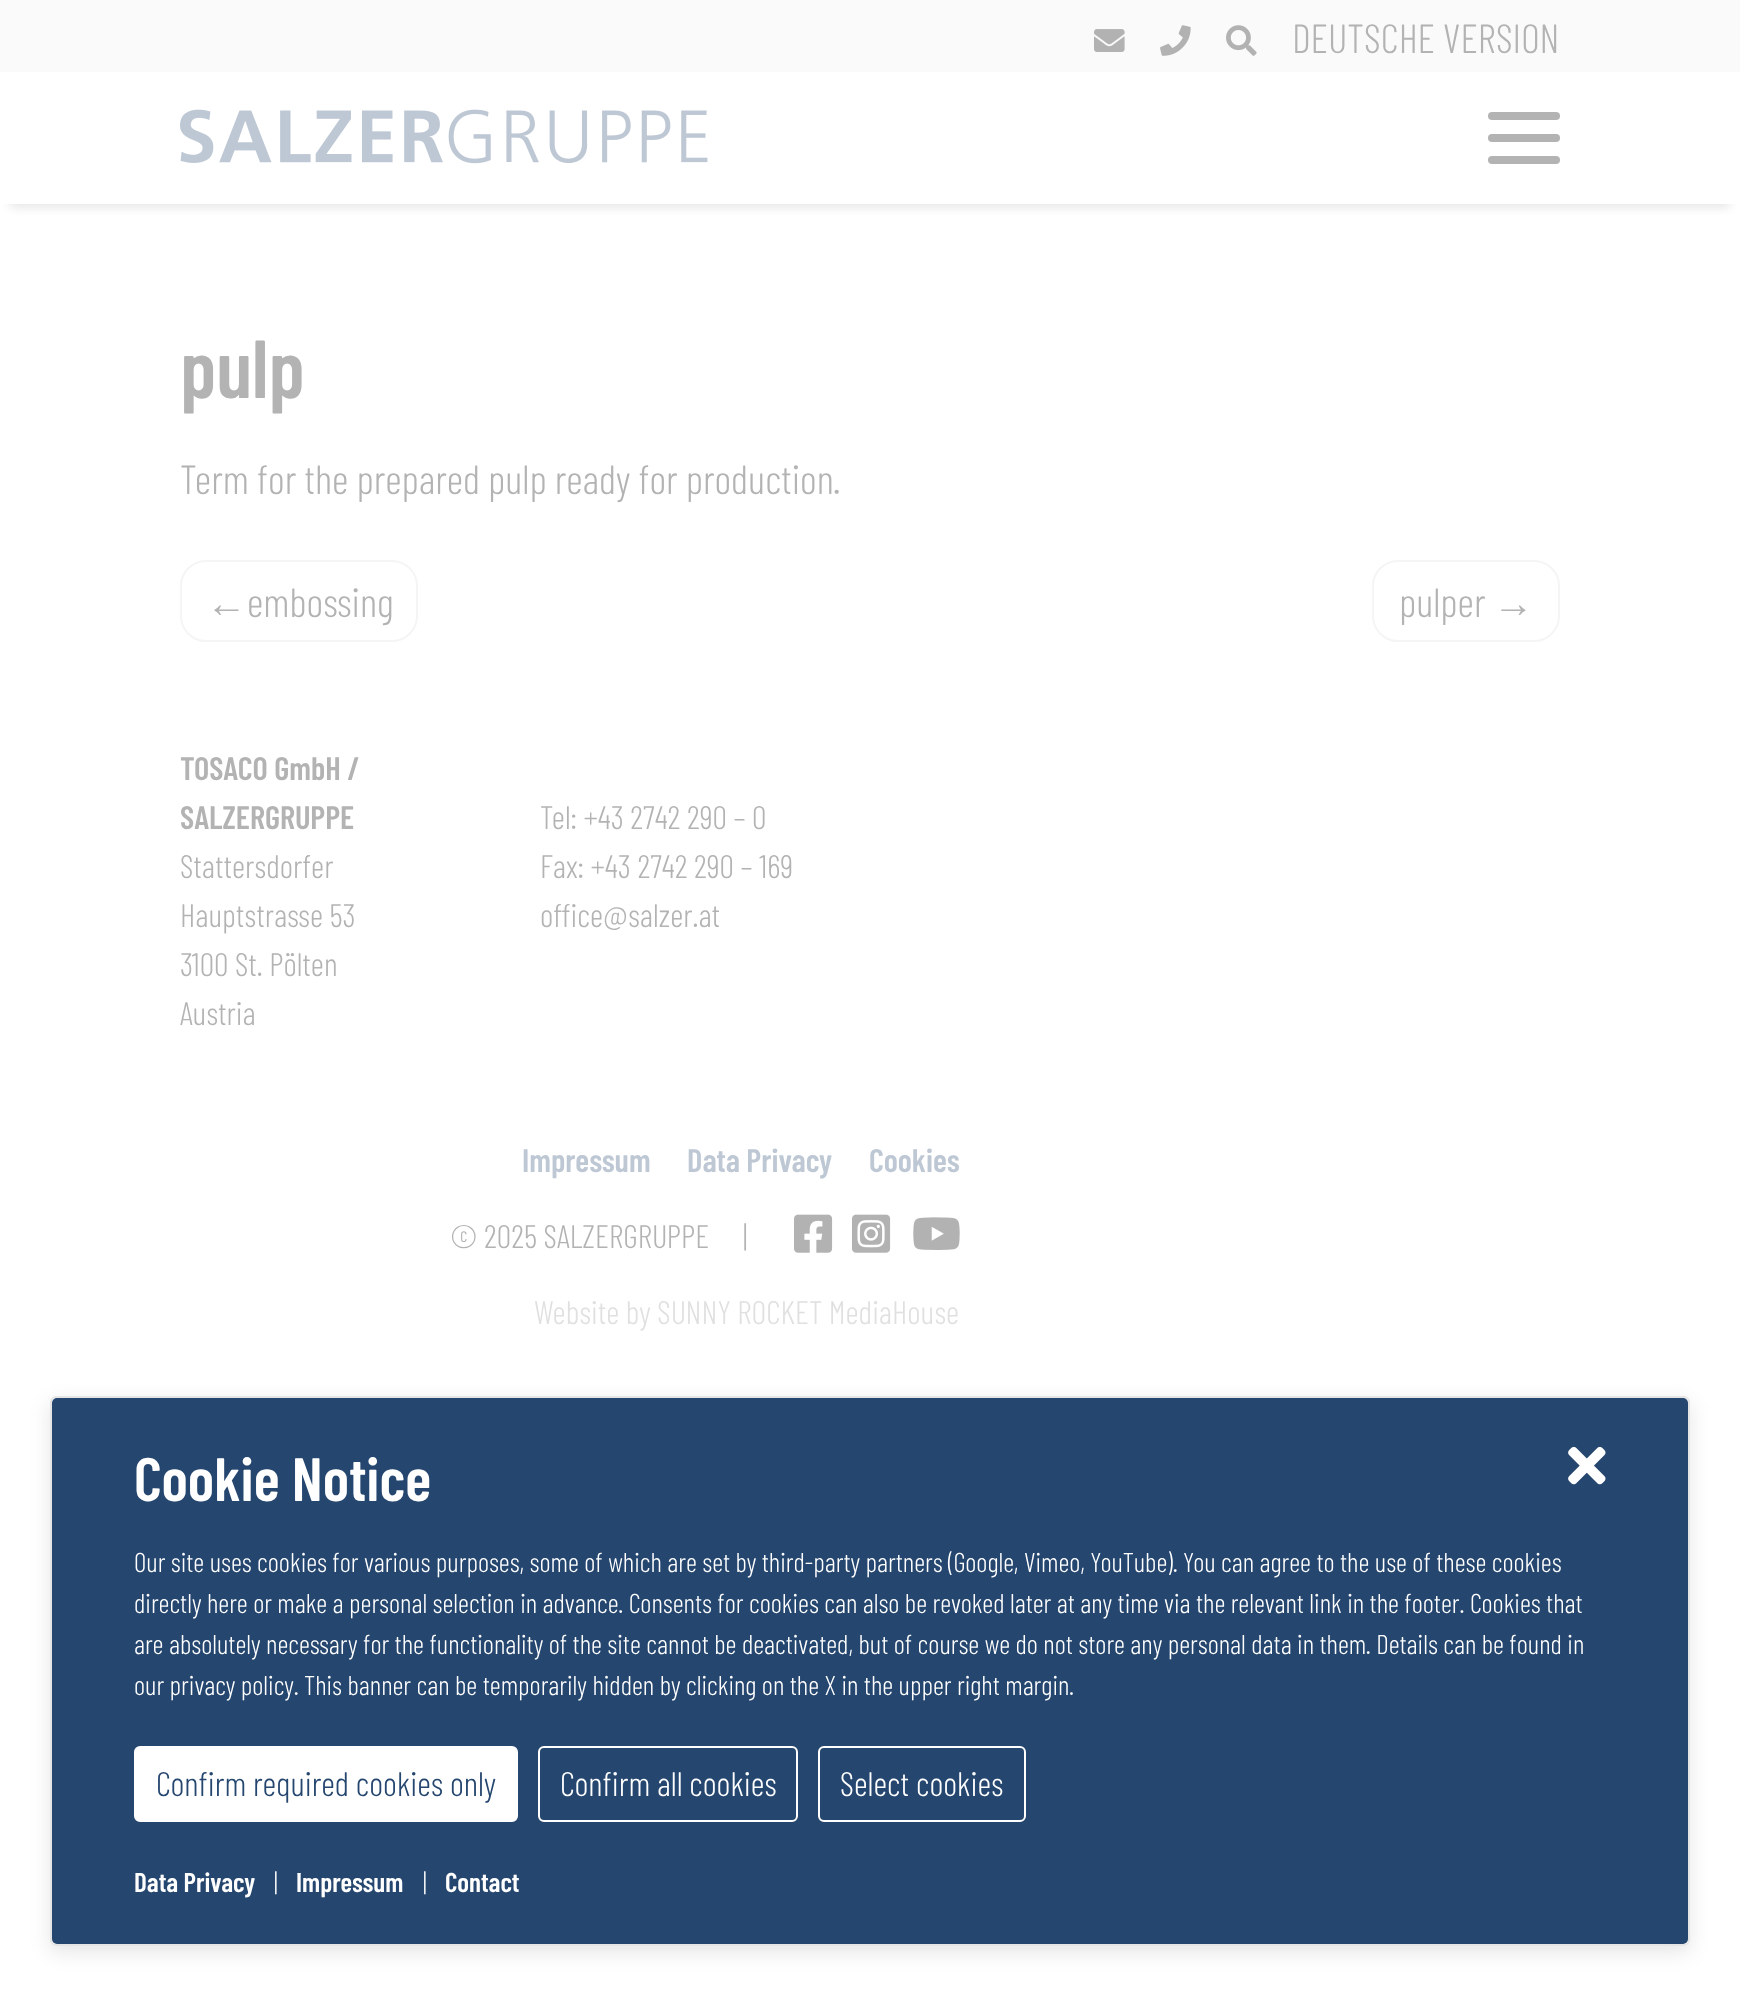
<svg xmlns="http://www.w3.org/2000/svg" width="1740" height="1996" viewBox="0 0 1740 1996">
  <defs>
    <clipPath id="clip1"><path d="M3 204h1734v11H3z"/></clipPath>
    <clipPath id="clip2"><path d="M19 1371H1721V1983H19ZM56 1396H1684C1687.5 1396 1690 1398.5 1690 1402V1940C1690 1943.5 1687.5 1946 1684 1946H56C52.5 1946 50 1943.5 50 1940V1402C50 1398.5 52.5 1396 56 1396Z" clip-rule="evenodd"/></clipPath>
  </defs>
  <rect width="100%" height="100%" fill="#fff"/>
  <g clip-path="url(#clip1)">
    <path d="M10 24h1720v184H10z" fill="#b3b3b34d" filter="blur(5px)"/>
  </g>
  <path d="M0 0h1740v72H0z" fill="#fafafa"/>
  <image x="1094" y="29" width="31" height="23" href="img/1.png"/>
  <image x="1160" y="25" width="31" height="31" href="img/2.png"/>
  <image x="1226" y="25" width="31" height="31" href="img/3.png"/>
  <image x="180" y="109" width="528" height="55" href="img/4.png"/>
  <rect x="1488" y="112" width="72" height="8" rx="4" fill="#b3b3b3"/>
  <rect x="1488" y="134" width="72" height="8" rx="4" fill="#b3b3b3"/>
  <rect x="1488" y="156" width="72" height="8" rx="4" fill="#b3b3b3"/>
  <rect x="181" y="561" width="236" height="80" rx="25" fill="none" stroke="#f5f5f5" stroke-width="2"/>
  <rect x="1373" y="561" width="186" height="80" rx="25" fill="none" stroke="#f5f5f5" stroke-width="2"/>
  <image x="794" y="1214" width="39" height="39" href="img/5.png"/>
  <image x="852" y="1214" width="39" height="39" href="img/6.png"/>
  <image x="913" y="1217" width="47" height="33" href="img/7.png"/>
  <g clip-path="url(#clip2)">
    <rect x="50" y="1402" width="1640" height="550" rx="6" fill="#0000001a" filter="blur(10px)"/>
  </g>
  <rect x="52" y="1398" width="1636" height="546" rx="5" fill="#25466f"/>
  <rect x="51" y="1397" width="1638" height="548" rx="5" fill="none" stroke="#0000001a" stroke-width="2"/>
  <image x="1568" y="1446" width="38" height="39" href="img/8.png"/>
  <rect x="135" y="1747" width="382" height="74" rx="5" fill="#fff" stroke="#fff" stroke-width="2"/>
  <rect x="539" y="1747" width="258" height="74" rx="5" fill="none" stroke="#fff" stroke-width="2"/>
  <rect x="819" y="1747" width="206" height="74" rx="5" fill="none" stroke="#fff" stroke-width="2"/>
  <text x="1292" y="53" font-family="Barlow Condensed" font-size="40.75" font-weight="300" fill="#b3b3b3">DEUTSCHE VERSION</text>
  <text x="180" y="398" font-family="Barlow Condensed" font-size="82" font-weight="600" fill="#b3b3b3">pulp</text>
  <text x="180" y="494" font-family="Barlow Condensed" font-size="40.75" font-weight="300" fill="#b3b3b3">Term for the prepared pulp ready for production.</text>
  <text x="206" y="617" font-family="Liberation Serif" font-size="40.75" fill="#b3b3b3">←</text>
  <g font-family="Barlow Condensed" font-size="40.75" font-weight="300" fill="#b3b3b3">
    <text x="247" y="617">embossing</text>
    <text x="1399" y="617">pulper</text>
  </g>
  <text x="1493" y="617" font-family="Liberation Serif" font-size="40.75" fill="#b3b3b3">→</text>
  <g font-family="Barlow Condensed" font-size="32.6" font-weight="600" fill="#b3b3b3">
    <text x="180" y="780">TOSACO GmbH /</text>
    <text x="180" y="829">SALZERGRUPPE</text>
  </g>
  <g font-family="Barlow Condensed" font-size="32.6" font-weight="300" fill="#b3b3b3">
    <text x="180" y="878">Stattersdorfer</text>
    <text x="180" y="927">Hauptstrasse 53</text>
    <text x="180" y="976">3100 St. Pölten</text>
    <text x="180" y="1025">Austria</text>
    <text x="540" y="829">Tel: +43 2742 290 – 0</text>
    <text x="540" y="878">Fax: +43 2742 290 – 169</text>
    <text x="540" y="927">office@salzer.at</text>
  </g>
  <g font-family="Barlow Condensed" font-size="32.6" font-weight="600" fill="#bec8d4">
    <text x="522" y="1172">Impressum</text>
    <text x="687" y="1172">Data Privacy</text>
    <text x="869" y="1172">Cookies</text>
  </g>
  <g font-family="Barlow Condensed" font-size="32.6" font-weight="300" fill="#b3b3b3">
    <text x="450" y="1248">© 2025 SALZERGRUPPE</text>
    <text x="743" y="1248">|</text>
  </g>
  <text x="534" y="1324" font-family="Barlow Condensed" font-size="32.6" font-weight="300" fill="#e0e0e0">Website by SUNNY ROCKET MediaHouse</text>
  <text x="134" y="1501" font-family="Barlow Condensed" font-size="61" font-weight="600" fill="#fff">Cookie Notice</text>
  <g font-family="Barlow Condensed" font-size="27.2" font-weight="300" fill="#fff">
    <text x="134" y="1572">Our site uses cookies for various purposes, some of which are set by third-party partners (Google, Vimeo, YouTube). You can agree to the use of these cookies</text>
    <text x="134" y="1613">directly here or make a personal selection in advance. Consents for cookies can also be revoked later at any time via the relevant link in the footer. Cookies that</text>
    <text x="134" y="1654">are absolutely necessary for the functionality of the site cannot be deactivated, but of course we do not store any personal data in them. Details can be found in</text>
    <text x="134" y="1695">our privacy policy. This banner can be temporarily hidden by clicking on the X in the upper right margin.</text>
  </g>
  <text x="156" y="1796" font-family="Barlow Condensed" font-size="34" font-weight="300" fill="#25466f">Confirm required cookies only</text>
  <g font-family="Barlow Condensed" font-size="34" font-weight="300" fill="#fff">
    <text x="560" y="1796">Confirm all cookies</text>
    <text x="840" y="1796">Select cookies</text>
  </g>
  <text x="134" y="1892" font-family="Barlow Condensed" font-size="27.2" font-weight="600" fill="#fff">Data Privacy</text>
  <text x="274" y="1892" font-family="Barlow Condensed" font-size="27.2" font-weight="300" fill="#fff">|</text>
  <text x="296" y="1892" font-family="Barlow Condensed" font-size="27.2" font-weight="600" fill="#fff">Impressum</text>
  <text x="423" y="1892" font-family="Barlow Condensed" font-size="27.2" font-weight="300" fill="#fff">|</text>
  <text x="445" y="1892" font-family="Barlow Condensed" font-size="27.2" font-weight="600" fill="#fff">Contact</text>
</svg>
